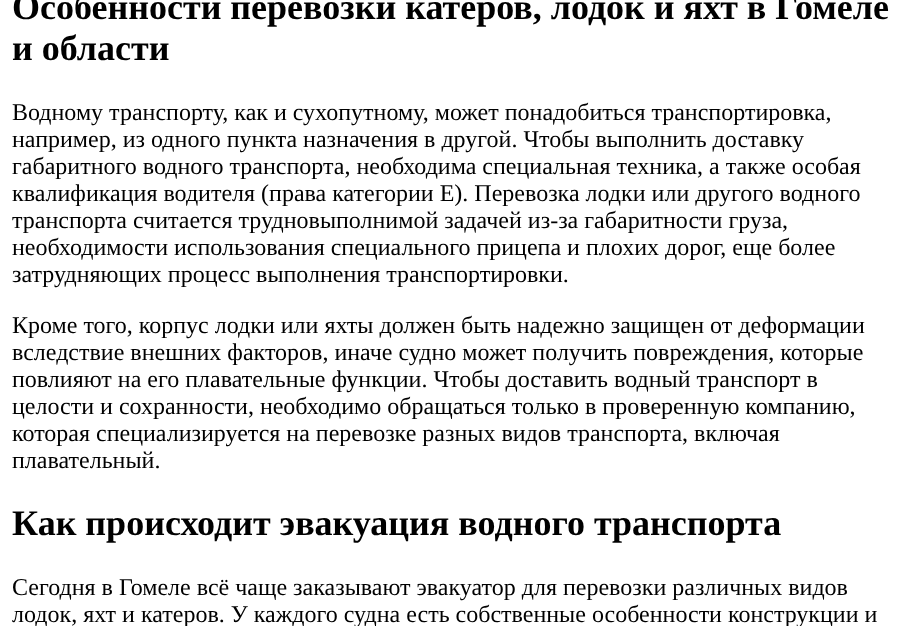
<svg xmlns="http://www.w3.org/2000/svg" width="910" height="626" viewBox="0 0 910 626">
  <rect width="100%" height="100%" fill="#fff"/>
  <g font-family="Liberation Serif" font-size="36" font-weight="bold" fill="#000">
    <text x="12" y="19">Особенности перевозки катеров, лодок и яхт в Гомеле</text>
    <text x="12" y="60">и области</text>
  </g>
  <g font-family="Liberation Serif" font-size="24" fill="#000">
    <text x="12" y="120">Водному транспорту, как и сухопутному, может понадобиться транспортировка,</text>
    <text x="12" y="147">например, из одного пункта назначения в другой. Чтобы выполнить доставку</text>
    <text x="12" y="174">габаритного водного транспорта, необходима специальная техника, а также особая</text>
    <text x="12" y="201">квалификация водителя (права категории Е). Перевозка лодки или другого водного</text>
    <text x="12" y="228">транспорта считается трудновыполнимой задачей из-за габаритности груза,</text>
    <text x="12" y="255">необходимости использования специального прицепа и плохих дорог, еще более</text>
    <text x="12" y="282">затрудняющих процесс выполнения транспортировки.</text>
    <text x="12" y="333">Кроме того, корпус лодки или яхты должен быть надежно защищен от деформации</text>
    <text x="12" y="360">вследствие внешних факторов, иначе судно может получить повреждения, которые</text>
    <text x="12" y="387">повлияют на его плавательные функции. Чтобы доставить водный транспорт в</text>
    <text x="12" y="414">целости и сохранности, необходимо обращаться только в проверенную компанию,</text>
    <text x="12" y="441">которая специализируется на перевозке разных видов транспорта, включая</text>
    <text x="12" y="468">плавательный.</text>
  </g>
  <text x="12" y="535" font-family="Liberation Serif" font-size="36" font-weight="bold" fill="#000">Как происходит эвакуация водного транспорта</text>
  <g font-family="Liberation Serif" font-size="24" fill="#000">
    <text x="12" y="595">Сегодня в Гомеле всё чаще заказывают эвакуатор для перевозки различных видов</text>
    <text x="12" y="622">лодок, яхт и катеров. У каждого судна есть собственные особенности конструкции и</text>
  </g>
</svg>
